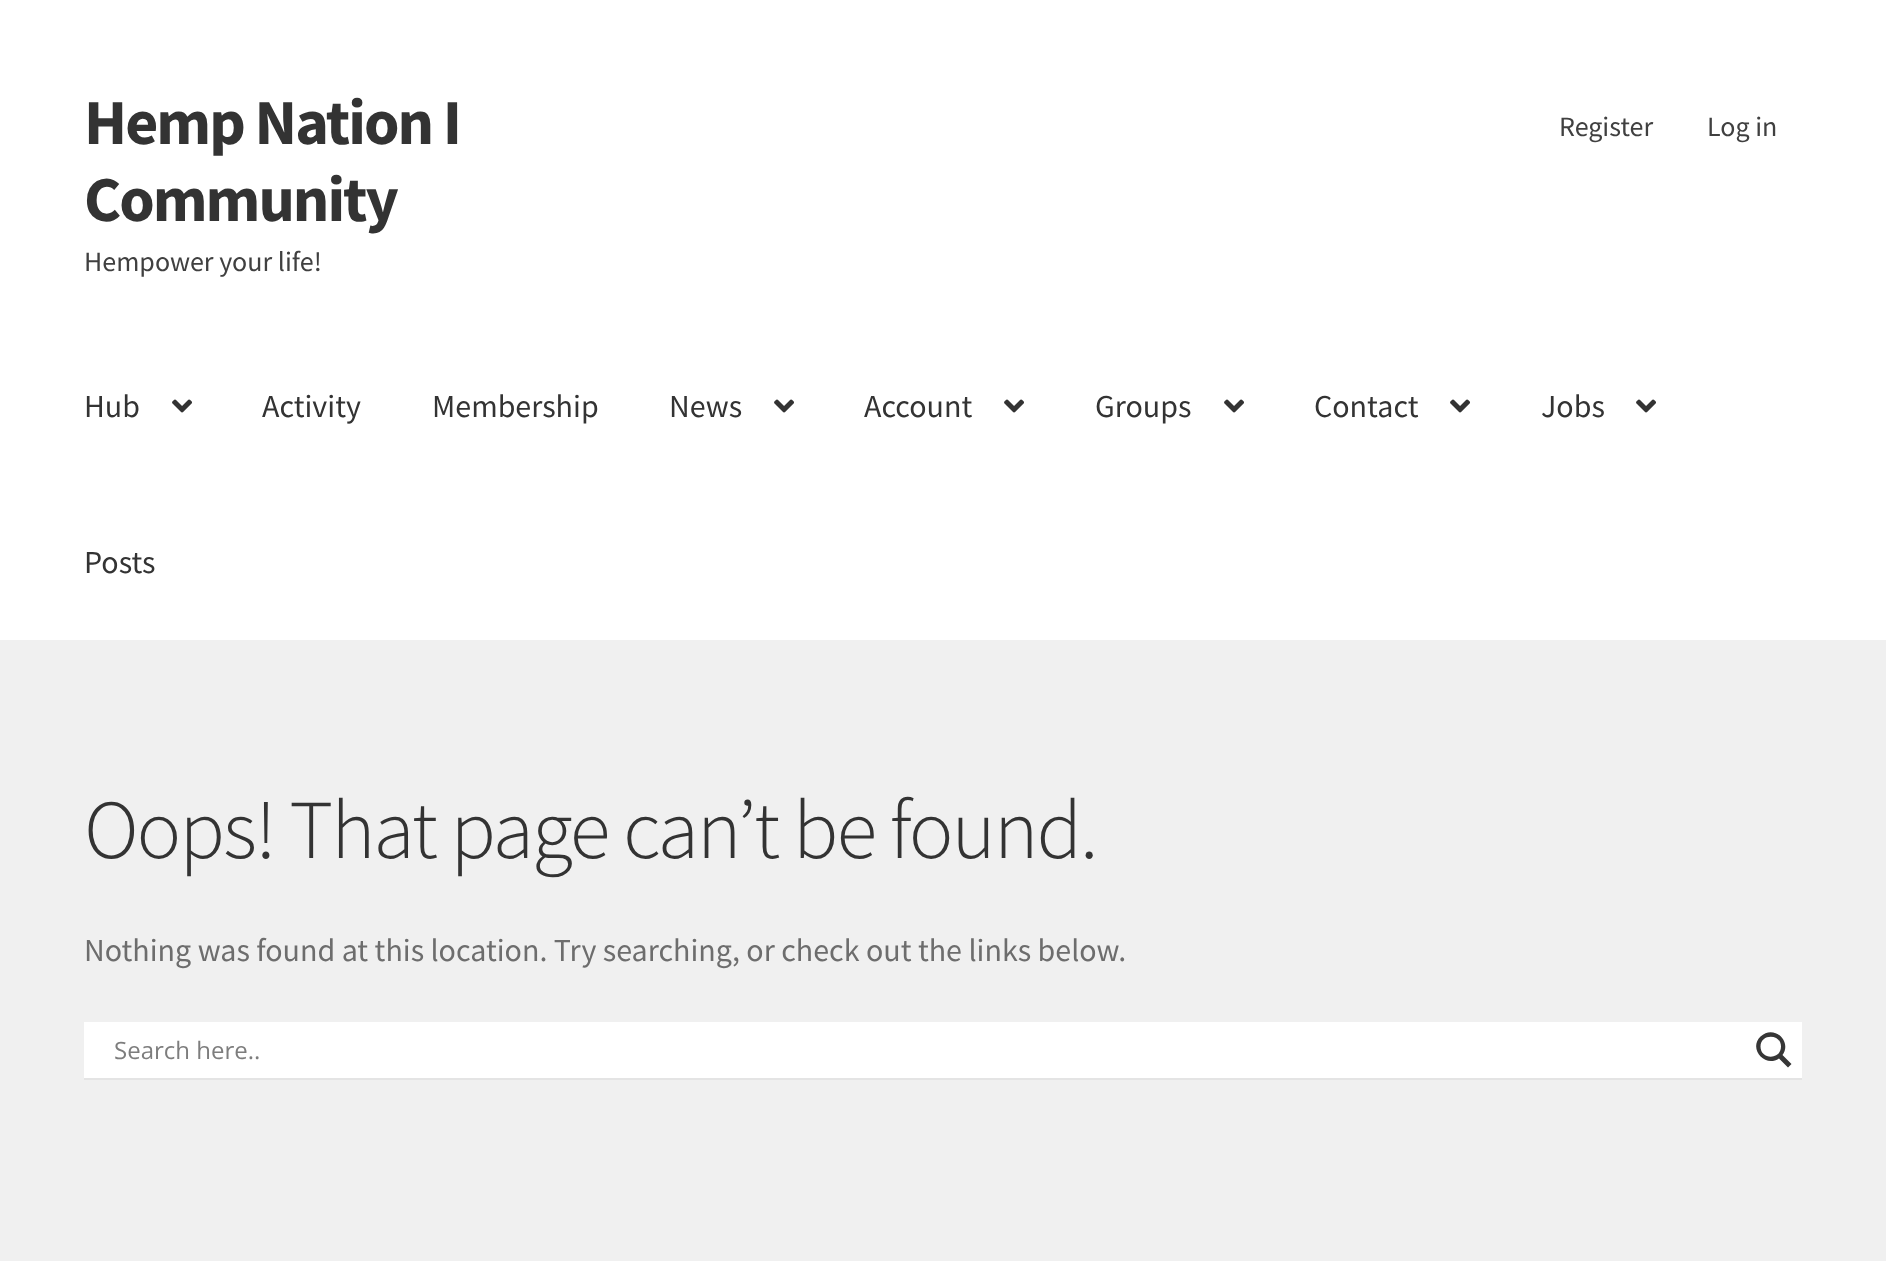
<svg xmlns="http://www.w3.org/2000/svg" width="1886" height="1261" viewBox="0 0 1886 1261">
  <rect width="100%" height="100%" fill="#f0f0f0"/>
  <path d="M0 0h1886v640H0z" fill="#fff"/>
  <image x="172" y="399" width="20" height="14" href="img/1.png"/>
  <image x="774" y="399" width="20" height="14" href="img/1.png"/>
  <image x="1004" y="399" width="20" height="14" href="img/1.png"/>
  <image x="1224" y="399" width="20" height="14" href="img/1.png"/>
  <image x="1450" y="399" width="20" height="14" href="img/1.png"/>
  <image x="1636" y="399" width="20" height="14" href="img/1.png"/>
  <path d="M84 1078h1718v2H84z" fill="#e4e4e4"/>
  <path d="M84 1022h1718v56H84z" fill="#fff"/>
  <path d="M1791.5 1064L1782.5 1055C1792.5 1041 1773.5 1024 1760.5 1036.5C1748 1049 1765 1068 1779 1058.5L1788 1067.5ZM1760.5 1046.5C1760.5 1033.5 1781 1033.5 1781 1046.5C1781 1060 1760.5 1060 1760.5 1046.5Z" fill="#363636"/>
  <g font-family="Source Sans Pro" font-size="64" font-weight="bold" letter-spacing="-2" fill="#333">
    <text x="84" y="144">Hemp Nation I</text>
    <text x="84" y="221">Community</text>
  </g>
  <g font-family="Source Sans Pro" font-size="28" fill="#404040">
    <text x="84" y="271">Hempower your life!</text>
    <text x="1559" y="136">Register</text>
    <text x="1707" y="136">Log in</text>
  </g>
  <g font-family="Source Sans Pro" font-size="32" fill="#333">
    <text x="84" y="417">Hub</text>
    <text x="262" y="417">Activity</text>
    <text x="432" y="417">Membership</text>
    <text x="669" y="417">News</text>
    <text x="864" y="417">Account</text>
    <text x="1095" y="417">Groups</text>
    <text x="1314" y="417">Contact</text>
    <text x="1541" y="417">Jobs</text>
    <text x="84" y="573">Posts</text>
  </g>
  <text x="84" y="858" font-family="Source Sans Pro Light" font-size="83.75" font-weight="300" letter-spacing="-2" fill="#333">Oops! That page can’t be found.</text>
  <text x="84" y="961" font-family="Source Sans Pro" font-size="32" fill="#6d6d6d">Nothing was found at this location. Try searching, or check out the links below.</text>
  <text x="114" y="1059" font-family="Open Sans" font-size="24" fill="#7d7d7d">Search here..</text>
</svg>
